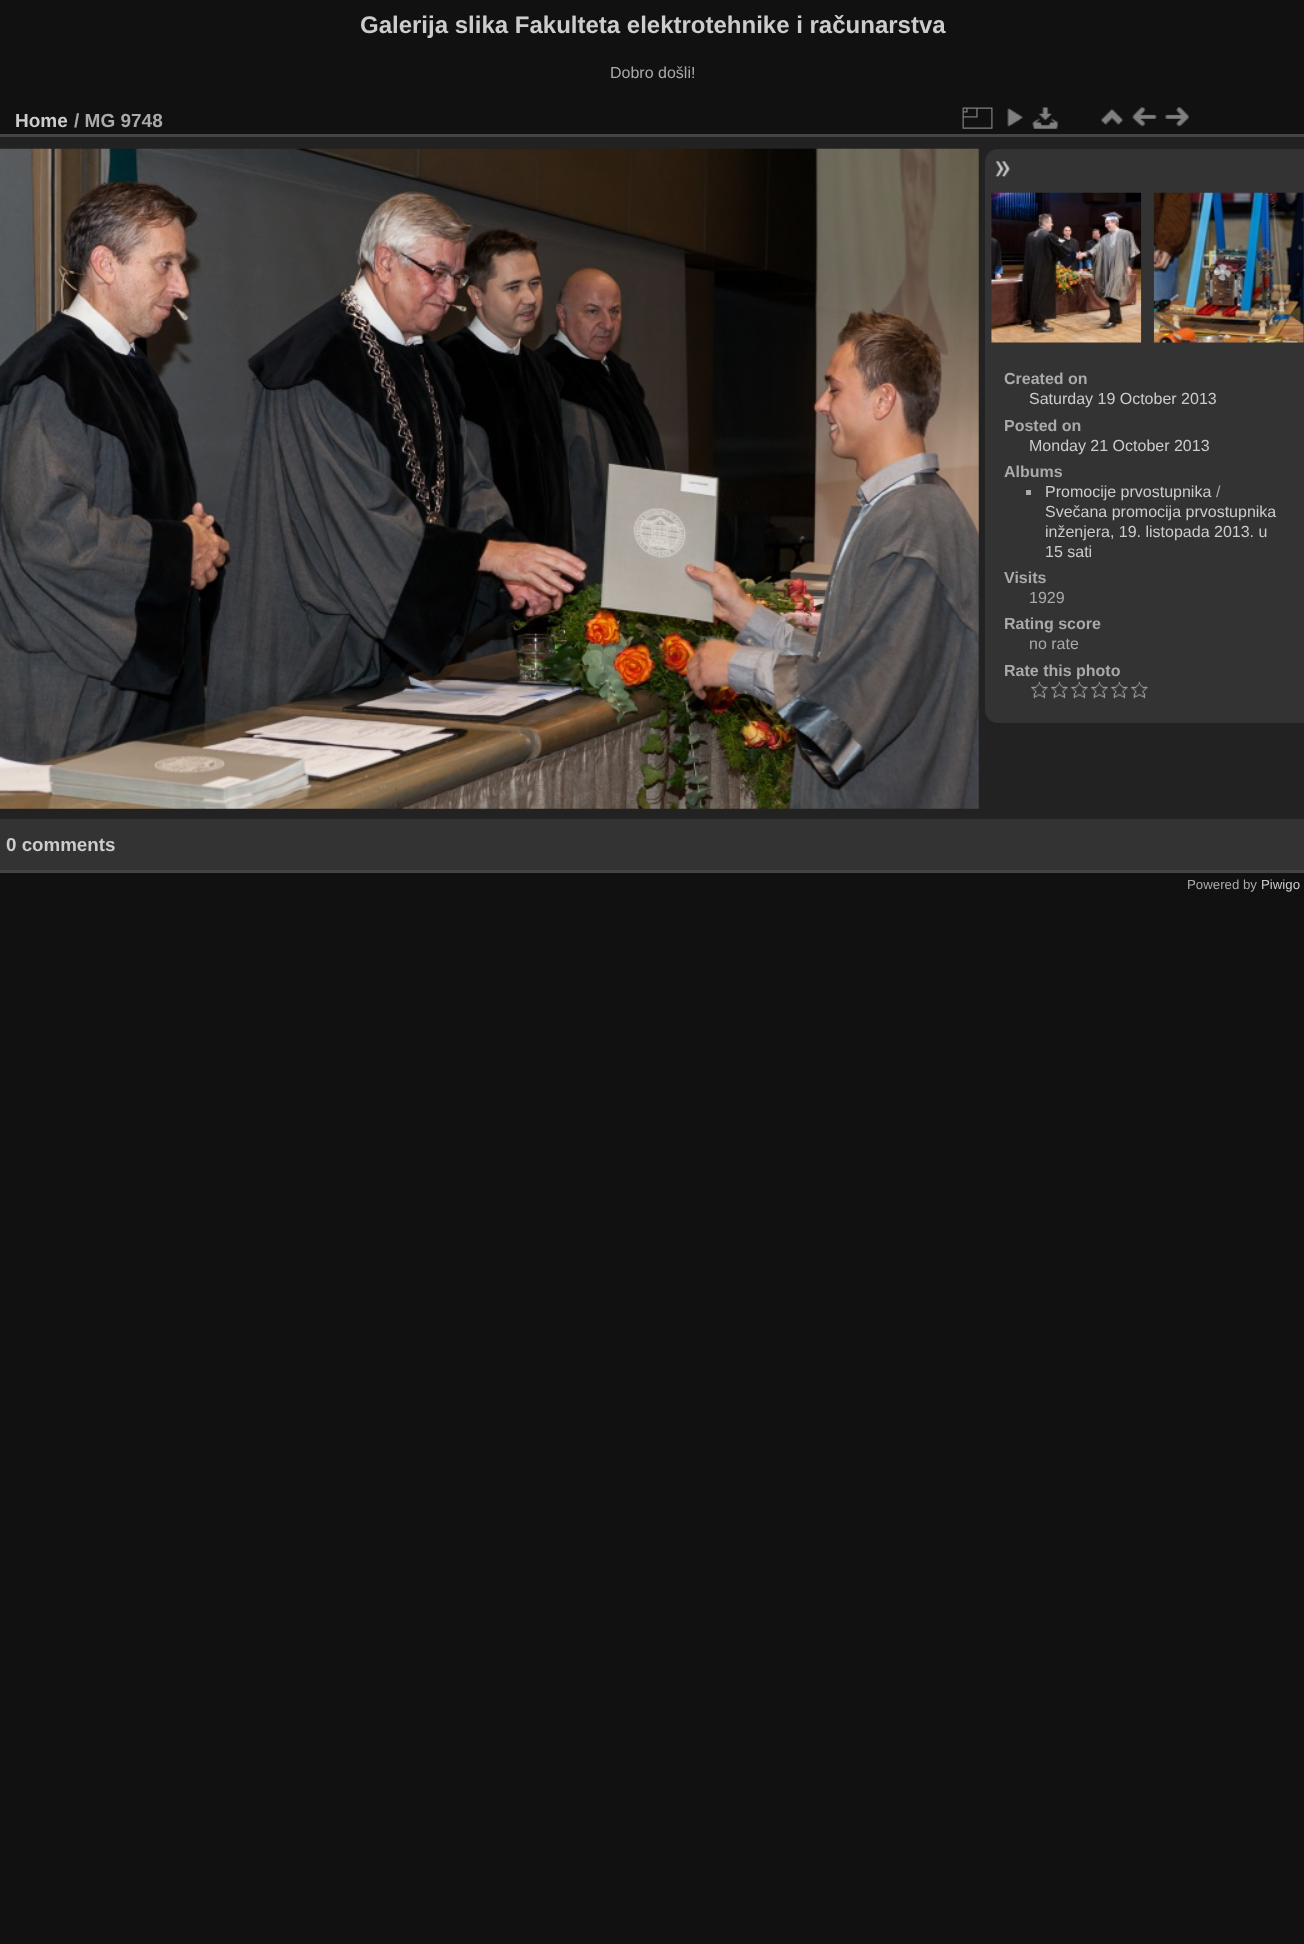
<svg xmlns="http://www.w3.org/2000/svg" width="1304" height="1944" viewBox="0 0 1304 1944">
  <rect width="100%" height="100%" fill="#111"/>
  <path d="M0 137h1304v682H0z" fill="#222"/>
  <path d="M0 870h1304v3H0z" fill="#444"/>
  <path d="M0 134h1304v3H0z" fill="#444"/>
  <image x="962" y="107" width="31" height="22" href="img/1.png"/>
  <image x="1007" y="108" width="16" height="19" href="img/2.png"/>
  <image x="1032" y="107" width="27" height="22" href="img/3.png"/>
  <image x="1101" y="108" width="22" height="18" href="img/4.png"/>
  <image x="1132" y="107" width="25" height="20" href="img/5.png"/>
  <image x="1165" y="107" width="24" height="20" href="img/6.png"/>
  <image x="0" y="148" width="979" height="661" href="img/7.png"/>
  <path d="M998 149H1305V723H998C991 723 985 717 985 710V162C985 155 991 149 998 149Z" fill="#333"/>
  <image x="995" y="161" width="16" height="16" href="img/8.png"/>
  <image x="991" y="192" width="151" height="151" href="img/9.png"/>
  <image x="1153" y="192" width="151" height="151" href="img/10.png"/>
  <path d="M1026 490h5v5H1026z" fill="#aaa"/>
  <image x="1031" y="681" width="17" height="18" href="img/11.png"/>
  <image x="1051" y="681" width="17" height="18" href="img/11.png"/>
  <image x="1071" y="681" width="17" height="18" href="img/12.png"/>
  <image x="1091" y="681" width="17" height="18" href="img/12.png"/>
  <image x="1111" y="681" width="17" height="18" href="img/12.png"/>
  <image x="1131" y="681" width="17" height="18" href="img/12.png"/>
  <path d="M0 819h1304v51H0z" fill="#333"/>
  <text x="360" y="33" font-family="Liberation Sans" font-size="24" font-weight="bold" fill="#ccc">Galerija slika Fakulteta elektrotehnike i računarstva</text>
  <text x="610" y="78" font-family="Liberation Sans" font-size="16" fill="#aaa">Dobro došli!</text>
  <text x="15" y="127" font-family="Liberation Sans" font-size="19" font-weight="bold" fill="#ccc">Home</text>
  <text x="74" y="127" font-family="Liberation Sans" font-size="19" font-weight="bold" fill="#aaa">/ MG 9748</text>
  <text x="1004" y="384" font-family="Liberation Sans" font-size="16" font-weight="bold" fill="#aaa">Created on</text>
  <text x="1029" y="404" font-family="Liberation Sans" font-size="16" fill="#ccc">Saturday 19 October 2013</text>
  <text x="1004" y="431" font-family="Liberation Sans" font-size="16" font-weight="bold" fill="#aaa">Posted on</text>
  <text x="1029" y="451" font-family="Liberation Sans" font-size="16" fill="#ccc">Monday 21 October 2013</text>
  <text x="1004" y="477" font-family="Liberation Sans" font-size="16" font-weight="bold" fill="#aaa">Albums</text>
  <text x="1045" y="497" font-family="Liberation Sans" font-size="16" fill="#ccc">Promocije prvostupnika</text>
  <text x="1216" y="497" font-family="Liberation Sans" font-size="16" fill="#aaa">/</text>
  <g font-family="Liberation Sans" font-size="16" fill="#ccc">
    <text x="1045" y="517">Svečana promocija prvostupnika</text>
    <text x="1045" y="537">inženjera, 19. listopada 2013. u</text>
    <text x="1045" y="557">15 sati</text>
  </g>
  <text x="1004" y="583" font-family="Liberation Sans" font-size="16" font-weight="bold" fill="#aaa">Visits</text>
  <text x="1029" y="603" font-family="Liberation Sans" font-size="16" fill="#aaa">1929</text>
  <text x="1004" y="629" font-family="Liberation Sans" font-size="16" font-weight="bold" fill="#aaa">Rating score</text>
  <text x="1029" y="649" font-family="Liberation Sans" font-size="16" fill="#aaa">no rate</text>
  <text x="1004" y="676" font-family="Liberation Sans" font-size="16" font-weight="bold" fill="#aaa">Rate this photo</text>
  <text x="6" y="851" font-family="Liberation Sans" font-size="18.75" font-weight="bold" fill="#ccc">0 comments</text>
  <text x="1187" y="889" font-family="Liberation Sans" font-size="13.25" fill="#aaa">Powered by</text>
  <text x="1261" y="889" font-family="Liberation Sans" font-size="13.25" fill="#ccc">Piwigo</text>
</svg>
